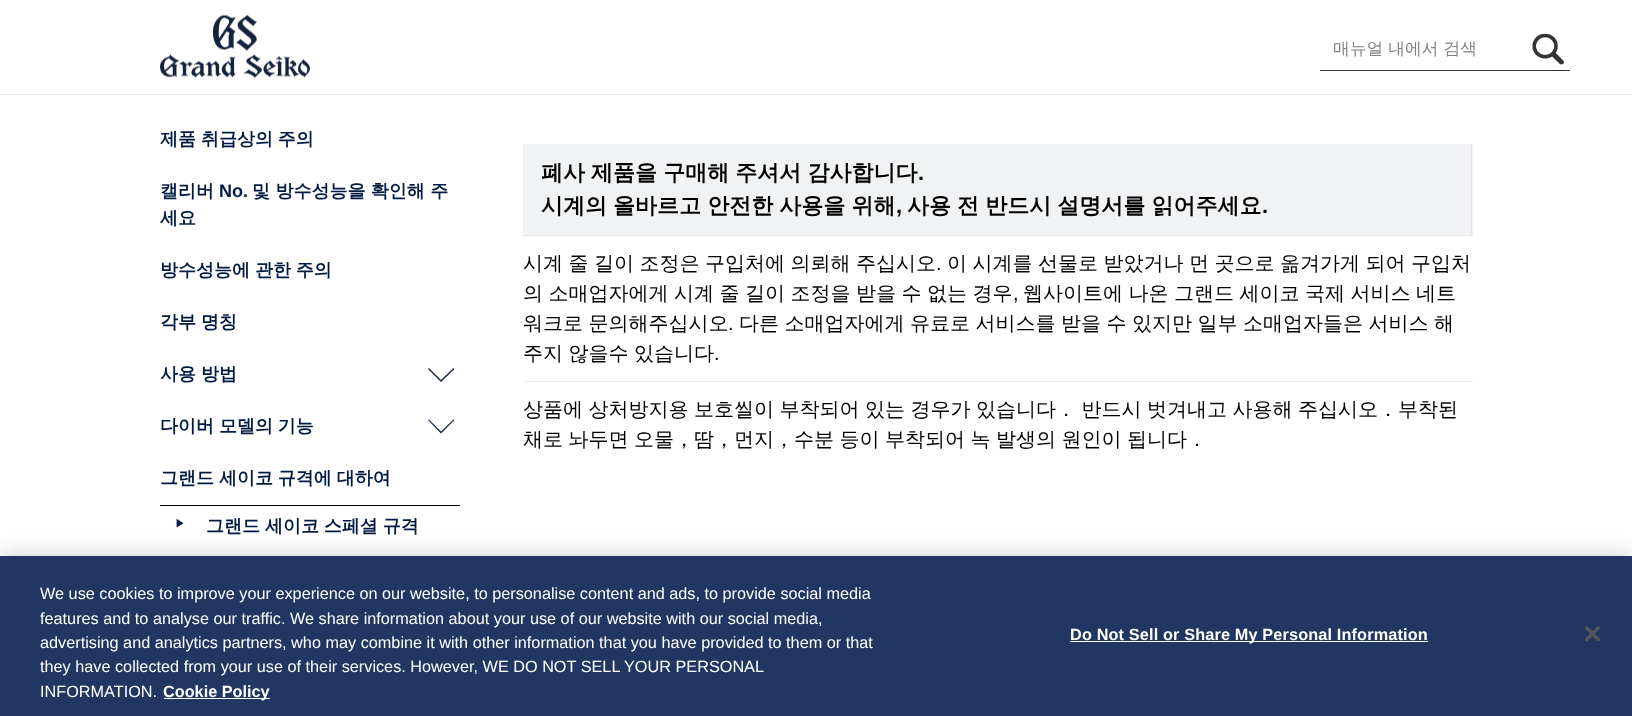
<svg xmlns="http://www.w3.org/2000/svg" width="1632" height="716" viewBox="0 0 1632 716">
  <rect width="100%" height="100%" fill="#fff"/>
  <path d="M0 94h1632v1H0z" fill="#e6e6e6"/>
  <image x="160" y="15" width="150" height="63" href="img/1.png"/>
  <path d="M1320 70h250v1H1320z" fill="#333"/>
  <image x="1532" y="33" width="32" height="32" href="img/2.png"/>
  <path d="M441 382L428 369L429 368L441 380L453.5 368L454.5 369Z" fill="#142245"/>
  <path d="M441 433.5L428 420L429 419.5L441 431.5L453.5 419.5L454.5 420Z" fill="#142245"/>
  <path d="M160 505h300v1H160z" fill="#000"/>
  <path d="M523 144h950v91H523z" fill="#f0f2f4"/>
  <path d="M1471 144h1v92H1471z" fill="#e6e6e6"/>
  <path d="M523 235h950v1H523z" fill="#e6e6e6"/>
  <path d="M523 381h950v1H523z" fill="#e6e6e6"/>
  <path d="M0 556h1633v160H0z" fill="#00000033" filter="blur(11px)"/>
  <path d="M0 556h1632v160H0z" fill="#213662"/>
  <path d="M164 698h106v1H164z" fill="#fff"/>
  <path d="M1070 641h358v1H1070z" fill="#fff"/>
  <image x="1585" y="626" width="15" height="15" href="img/3.png"/>
  <text x="1333" y="54" font-family="WenQuanYi Zen Hei" font-size="16.75" font-weight="500" fill="#808080">매뉴얼 내에서 검색</text>
  <g font-family="WenQuanYi Zen Hei" font-size="18" font-weight="bold" fill="#001a43">
    <text x="160" y="145" word-spacing="-0.5">제품 취급상의 주의</text>
    <text x="160" y="197">캘리버</text>
  </g>
  <text x="219" y="197" font-family="Liberation Sans" font-size="18" font-weight="bold" fill="#001a43">No.</text>
  <g font-family="WenQuanYi Zen Hei" font-size="18" font-weight="bold" fill="#001a43">
    <text x="252" y="197">및 방수성능을 확인해 주</text>
    <text x="160" y="224">세요</text>
    <text x="160" y="276" word-spacing="-0.5">방수성능에 관한 주의</text>
    <text x="160" y="328" word-spacing="-0.5">각부 명칭</text>
    <text x="160" y="380" word-spacing="-0.5">사용 방법</text>
    <text x="160" y="432" word-spacing="-0.5">다이버 모델의 기능</text>
    <text x="160" y="484" word-spacing="-0.5">그랜드 세이코 규격에 대하여</text>
  </g>
  <text x="175" y="527" font-family="WenQuanYi Zen Hei" font-size="10" font-weight="bold" fill="#001a43">▶</text>
  <text x="206" y="532" word-spacing="-0.5" font-family="WenQuanYi Zen Hei" font-size="18" font-weight="bold" fill="#001a43">그랜드 세이코 스페셜 규격</text>
  <text x="541" y="180" word-spacing="-0.5" font-family="WenQuanYi Zen Hei" font-size="22" font-weight="bold" fill="#000">폐사 제품을 구매해 주셔서 감사합니다</text>
  <text x="918" y="180" font-family="Liberation Sans" font-size="22" font-weight="bold" fill="#000">.</text>
  <text x="541" y="213" word-spacing="-0.5" font-family="WenQuanYi Zen Hei" font-size="22" font-weight="bold" fill="#000">시계의 올바르고 안전한 사용을 위해</text>
  <text x="896" y="213" font-family="Liberation Sans" font-size="22" font-weight="bold" fill="#000">,</text>
  <text x="907" y="213" word-spacing="-0.5" font-family="WenQuanYi Zen Hei" font-size="22" font-weight="bold" fill="#000">사용 전 반드시 설명서를 읽어주세요</text>
  <text x="1262" y="213" font-family="Liberation Sans" font-size="22" font-weight="bold" fill="#000">.</text>
  <text x="523" y="270" word-spacing="-0.5" font-family="WenQuanYi Zen Hei" font-size="20" font-weight="500" fill="#000">시계 줄 길이 조정은 구입처에 의뢰해 주십시오</text>
  <text x="936" y="270" font-family="Liberation Sans" font-size="20" fill="#000">.</text>
  <g font-family="WenQuanYi Zen Hei" font-size="20" font-weight="500" fill="#000">
    <text x="947" y="270" word-spacing="-0.5">이 시계를 선물로 받았거나 먼 곳으로 옮겨가게 되어 구입처</text>
    <text x="523" y="300" word-spacing="-0.5">의 소매업자에게 시계 줄 길이 조정을 받을 수 없는 경우</text>
  </g>
  <text x="1013" y="300" font-family="Liberation Sans" font-size="20" fill="#000">,</text>
  <g font-family="WenQuanYi Zen Hei" font-size="20" font-weight="500" fill="#000">
    <text x="1023" y="300" word-spacing="-0.5">웹사이트에 나온 그랜드 세이코 국제 서비스 네트</text>
    <text x="523" y="330" word-spacing="-0.5">워크로 문의해주십시오</text>
  </g>
  <text x="728" y="330" font-family="Liberation Sans" font-size="20" fill="#000">.</text>
  <g font-family="WenQuanYi Zen Hei" font-size="20" font-weight="500" fill="#000">
    <text x="739" y="330" word-spacing="-0.5">다른 소매업자에게 유료로 서비스를 받을 수 있지만 일부 소매업자들은 서비스 해</text>
    <text x="523" y="360" word-spacing="-0.5">주지 않을수 있습니다</text>
  </g>
  <text x="714" y="360" font-family="Liberation Sans" font-size="20" fill="#000">.</text>
  <g font-family="WenQuanYi Zen Hei" font-size="20" font-weight="500" fill="#000">
    <text x="523" y="416" word-spacing="-0.5">상품에 상처방지용 보호씰이 부착되어 있는 경우가 있습니다． 반드시 벗겨내고 사용해 주십시오．부착된</text>
    <text x="523" y="446" word-spacing="-0.5">채로 놔두면 오물，땀，먼지，수분 등이 부착되어 녹 발생의 원인이 됩니다．</text>
  </g>
  <g font-family="Liberation Sans" font-size="16.25" fill="#fff">
    <text x="40" y="599">We use cookies to improve your experience on our website, to personalise content and ads, to provide social media</text>
    <text x="40" y="624">features and to analyse our traffic. We share information about your use of our website with our social media,</text>
    <text x="40" y="648">advertising and analytics partners, who may combine it with other information that you have provided to them or that</text>
    <text x="40" y="672">they have collected from your use of their services. However, WE DO NOT SELL YOUR PERSONAL</text>
    <text x="40" y="697">INFORMATION.</text>
  </g>
  <text x="163" y="697" font-family="Liberation Sans" font-size="16.25" font-weight="bold" fill="#fff">Cookie Policy</text>
  <text x="1070" y="640" font-family="Liberation Sans" font-size="16.25" font-weight="bold" letter-spacing="0.15" fill="#fff">Do Not Sell or Share My Personal Information</text>
</svg>
